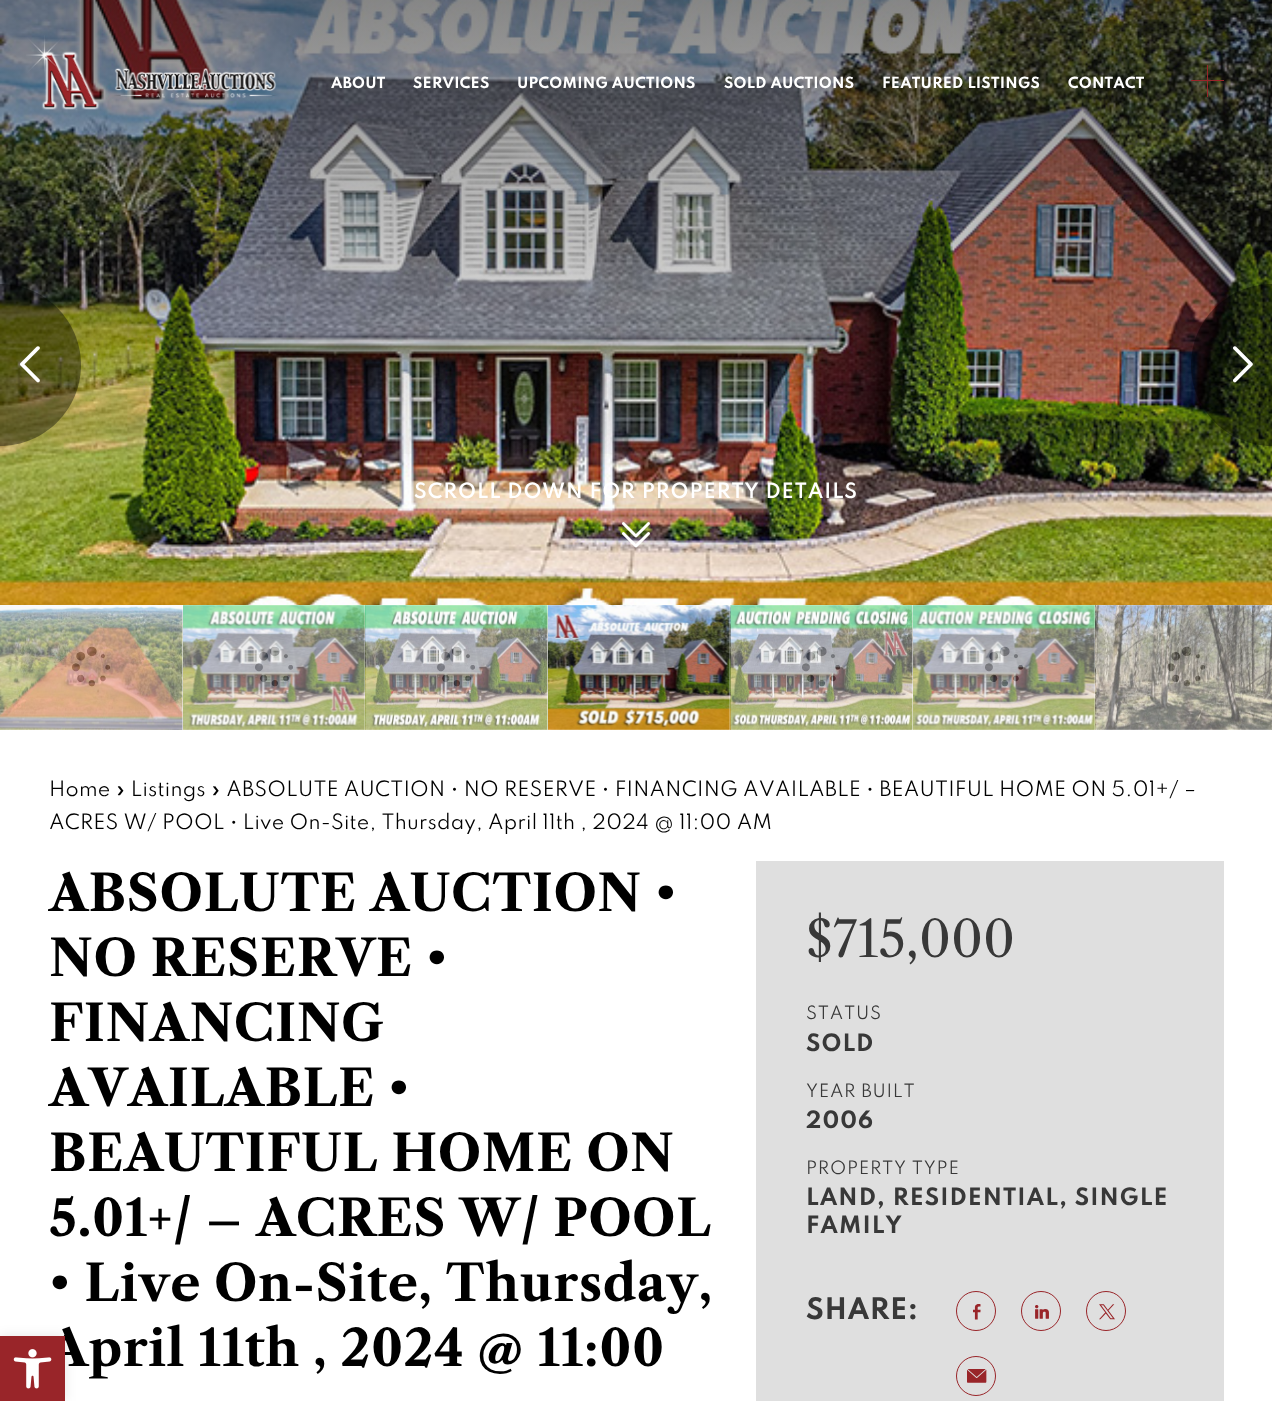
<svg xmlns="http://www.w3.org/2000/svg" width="1272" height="1401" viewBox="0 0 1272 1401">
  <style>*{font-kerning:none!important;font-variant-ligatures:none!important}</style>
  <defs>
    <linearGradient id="g1" gradientUnits="userSpaceOnUse" x1="636" y1="730" x2="636" y2="0"><stop offset="0.35" stop-color="#0e0e0e" stop-opacity="0"/><stop offset="1" stop-color="#0e0e0e" stop-opacity="0.5"/></linearGradient>
  </defs>
  <rect width="100%" height="100%" fill="#fff"/>
  <image x="0" y="0" width="1272" height="605" href="img/2.png"/>
  <path d="M0 0h1272v454H0z" fill="url(#g1)"/>
  <image x="26" y="35" width="251" height="75" href="img/1.png"/>
  <path d="M1191 80h33v1H1191z" fill="#992529"/>
  <path d="M1207 65h1v32H1207z" fill="#992529"/>
  <path d="M0 284C44.5 284 81 320.5 81 365C81 409.5 44.5 446 0 446Z" fill="#00000066"/>
  <path d="M1272 284H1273V446H1272C1227.5 446 1191 409.5 1191 365C1191 320.5 1227.5 284 1272 284Z" fill="#00000066"/>
  <path d="M756 861h468v540H756z" fill="#dfdfdf"/>
  <circle cx="976" cy="1311" r="19.5" fill="none" stroke="#992529"/>
  <circle cx="1041" cy="1311" r="19.5" fill="none" stroke="#992529"/>
  <circle cx="1106" cy="1311" r="19.5" fill="none" stroke="#992529"/>
  <circle cx="976" cy="1376" r="19.5" fill="none" stroke="#992529"/>
  <path d="M0 1336h65v65H0z" fill="#0000001a" filter="blur(6px)"/>
  <g font-family="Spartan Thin" font-size="13.75" font-weight="bold" letter-spacing="0.25" fill="#fff">
    <text x="331" y="88">ABOUT</text>
    <text x="413" y="88">SERVICES</text>
    <text x="517" y="88">UPCOMING AUCTIONS</text>
    <text x="724" y="88">SOLD AUCTIONS</text>
    <text x="882" y="88">FEATURED LISTINGS</text>
    <text x="1068" y="88">CONTACT</text>
  </g>
  <g font-family="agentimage" font-size="36" fill="#fff">
    <text x="20" y="380">򰈅</text>
    <text x="1233" y="380">򰈆</text>
  </g>
  <text x="414" y="498" font-family="Spartan Thin" font-size="18.75" font-weight="600" letter-spacing="0.95" fill="#fff">SCROLL DOWN FOR PROPERTY DETAILS</text>
  <g font-family="agentimage" font-size="28" letter-spacing="0.95" fill="#fff">
    <text x="622" y="542">򰈇</text>
    <text x="622" y="552">򰈇</text>
  </g>
  <text x="71" y="684" font-family="agentimage" font-size="40" fill="#595959">򰅰</text>
  <image x="0" y="605" width="183" height="125" href="img/3.png"/>
  <text x="254" y="684" font-family="agentimage" font-size="40" fill="#595959">򰅰</text>
  <image x="183" y="605" width="183" height="125" href="img/4.png"/>
  <text x="436" y="684" font-family="agentimage" font-size="40" fill="#595959">򰅰</text>
  <image x="365" y="605" width="183" height="125" href="img/5.png"/>
  <text x="801" y="684" font-family="agentimage" font-size="40" fill="#595959">򰅰</text>
  <image x="730" y="605" width="183" height="125" href="img/7.png"/>
  <image x="548" y="605" width="183" height="125" href="img/6.png"/>
  <text x="984" y="684" font-family="agentimage" font-size="40" fill="#595959">򰅰</text>
  <image x="913" y="605" width="183" height="125" href="img/8.png"/>
  <text x="1166" y="684" font-family="agentimage" font-size="40" fill="#595959">򰅰</text>
  <image x="1095" y="605" width="177" height="125" href="img/9.png"/>
  <g font-family="Spartan Thin" font-size="18.75" letter-spacing="0.2" fill="#000">
    <text x="49" y="796">Home » Listings » ABSOLUTE AUCTION • NO RESERVE • FINANCING AVAILABLE • BEAUTIFUL HOME ON 5.01+/ –</text>
    <text x="49" y="829">ACRES W/ POOL • Live On-Site, Thursday, April 11th , 2024 @ 11:00 AM</text>
  </g>
  <g font-family="Libre Caslon Text" font-size="50" font-weight="bold" letter-spacing="0.5" fill="#000">
    <text x="49" y="911">ABSOLUTE AUCTION •</text>
    <text x="49" y="976">NO RESERVE •</text>
    <text x="49" y="1041">FINANCING</text>
    <text x="49" y="1106">AVAILABLE</text>
    <text x="388" y="1106">•</text>
    <text x="49" y="1171">BEAUTIFUL HOME ON</text>
    <text x="49" y="1236">5.01+/ – ACRES W/ POOL</text>
    <text x="49" y="1301">• Live On-Site, Thursday,</text>
    <text x="49" y="1366">April 11th , 2024 @ 11:00</text>
  </g>
  <text x="806" y="957" font-family="Libre Caslon Text" font-size="50" fill="#383838">$715,000</text>
  <text x="806" y="1019" font-family="Spartan Thin" font-size="16.25" letter-spacing="0.75" fill="#383838">STATUS</text>
  <text x="806" y="1051" font-family="Spartan Thin" font-size="21.25" font-weight="bold" letter-spacing="1.05" fill="#383838">SOLD</text>
  <text x="806" y="1097" font-family="Spartan Thin" font-size="16.25" letter-spacing="0.75" fill="#383838">YEAR BUILT</text>
  <text x="806" y="1128" font-family="Spartan Thin" font-size="21.25" font-weight="bold" letter-spacing="1.05" fill="#383838">2006</text>
  <text x="806" y="1174" font-family="Spartan Thin" font-size="16.25" letter-spacing="0.75" fill="#383838">PROPERTY TYPE</text>
  <g font-family="Spartan Thin" font-size="21.25" font-weight="bold" letter-spacing="1.05" fill="#383838">
    <text x="806" y="1205">LAND, RESIDENTIAL, SINGLE</text>
    <text x="806" y="1233">FAMILY</text>
  </g>
  <text x="806" y="1319" font-family="Spartan Thin" font-size="26.25" font-weight="bold" letter-spacing="0.5" fill="#383838">SHARE:</text>
  <g font-family="agentimage" font-size="18.75" fill="#992529">
    <text x="973" y="1320">򰄔</text>
    <text x="1035" y="1320">򰄅</text>
    <text x="1099" y="1320">򰄀</text>
  </g>
  <text x="967" y="1382" font-family="agentimage" font-size="13.75" fill="#992529">򰄡</text>
  <path d="M0 1336h65v65H0z" fill="#992529"/>
  <image x="13" y="1349" width="39" height="40" href="img/10.png"/>
</svg>
